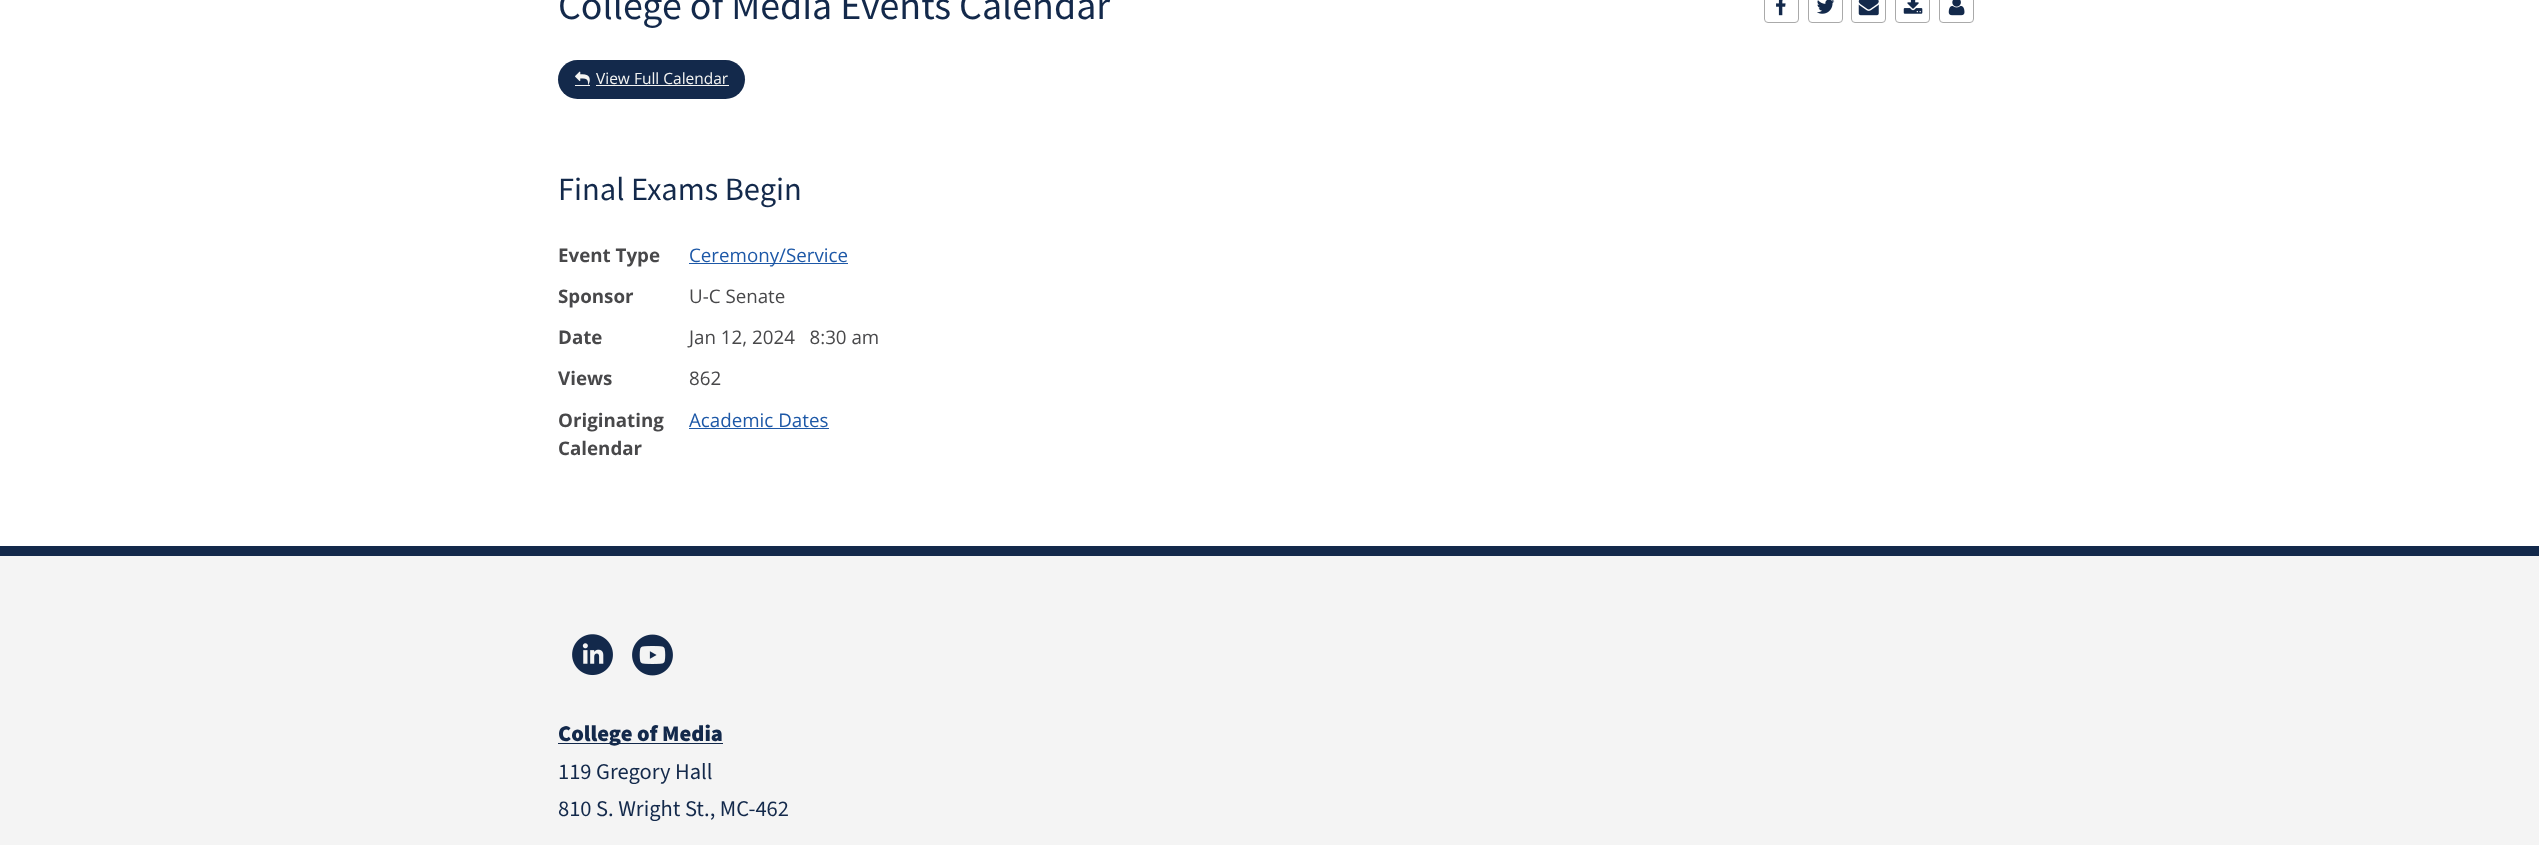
<svg xmlns="http://www.w3.org/2000/svg" width="2539" height="845" viewBox="0 0 2539 845">
  <rect width="100%" height="100%" fill="#fff"/>
  <rect x="1764.5" y="-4.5" width="34" height="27" rx="3.5" fill="none" stroke="#aaa"/>
  <image x="1776" y="0" width="10" height="16" href="img/1.png"/>
  <rect x="1808.5" y="-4.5" width="34" height="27" rx="3.5" fill="none" stroke="#aaa"/>
  <image x="1817" y="0" width="18" height="14" href="img/2.png"/>
  <rect x="1851.5" y="-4.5" width="34" height="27" rx="3.5" fill="none" stroke="#aaa"/>
  <image x="1858" y="0" width="21" height="16" href="img/3.png"/>
  <rect x="1895.5" y="-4.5" width="34" height="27" rx="3.5" fill="none" stroke="#aaa"/>
  <image x="1903" y="0" width="20" height="14" href="img/4.png"/>
  <rect x="1939.5" y="-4.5" width="34" height="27" rx="3.5" fill="none" stroke="#aaa"/>
  <image x="1948" y="0" width="17" height="16" href="img/5.png"/>
  <rect x="558" y="60" width="187" height="39" rx="19.5" fill="#13294b"/>
  <image x="575" y="71" width="15" height="14" href="img/6.png"/>
  <path d="M596 85h133v1H596z" fill="#f4f4f2"/>
  <path d="M575 85h15v1H575z" fill="#f4f4f2"/>
  <path d="M689 263h159v1H689z" fill="#1d58a7"/>
  <path d="M689 428h140v1H689z" fill="#1d58a7"/>
  <path d="M0 556h2539v289H0z" fill="#f4f4f4"/>
  <path d="M0 546h2539v10H0z" fill="#13294b"/>
  <image x="572" y="634" width="41" height="42" href="img/7.png"/>
  <image x="632" y="634" width="41" height="42" href="img/8.png"/>
  <path d="M558 743h165v1H558z" fill="#13294b"/>
  <text x="558" y="19" font-family="Source Sans Pro" font-size="40" fill="#13294b">College of Media Events Calendar</text>
  <text x="596" y="84" font-family="Open Sans" font-size="15.5" fill="#f4f4f2">View Full Calendar</text>
  <text x="558" y="200" font-family="Source Sans Pro" font-size="32.5" fill="#13294b">Final Exams Begin</text>
  <text x="558" y="262" font-family="Open Sans" font-size="18.75" font-weight="bold" fill="#48484a">Event Type</text>
  <text x="689" y="262" font-family="Open Sans" font-size="18.75" fill="#1d58a7">Ceremony/Service</text>
  <text x="558" y="303" font-family="Open Sans" font-size="18.75" font-weight="bold" fill="#48484a">Sponsor</text>
  <text x="689" y="303" font-family="Open Sans" font-size="18.75" fill="#48484a">U-C Senate</text>
  <text x="558" y="344" font-family="Open Sans" font-size="18.75" font-weight="bold" fill="#48484a">Date</text>
  <text x="689" y="344" font-family="Open Sans" font-size="18.75" fill="#48484a" xml:space="preserve">Jan 12, 2024   8:30 am</text>
  <text x="558" y="385" font-family="Open Sans" font-size="18.75" font-weight="bold" fill="#48484a">Views</text>
  <text x="689" y="385" font-family="Open Sans" font-size="18.75" fill="#48484a">862</text>
  <g font-family="Open Sans" font-size="18.75" font-weight="bold" fill="#48484a">
    <text x="558" y="427">Originating</text>
    <text x="558" y="455">Calendar</text>
  </g>
  <text x="689" y="427" font-family="Open Sans" font-size="18.75" fill="#1d58a7">Academic Dates</text>
  <text x="558" y="741" font-family="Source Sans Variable" font-size="22.5" font-weight="900" fill="#13294b">College of Media</text>
  <g font-family="Source Sans Variable" font-size="22.5" fill="#13294b">
    <text x="558" y="779">119 Gregory Hall</text>
    <text x="558" y="816">810 S. Wright St., MC-462</text>
  </g>
</svg>
